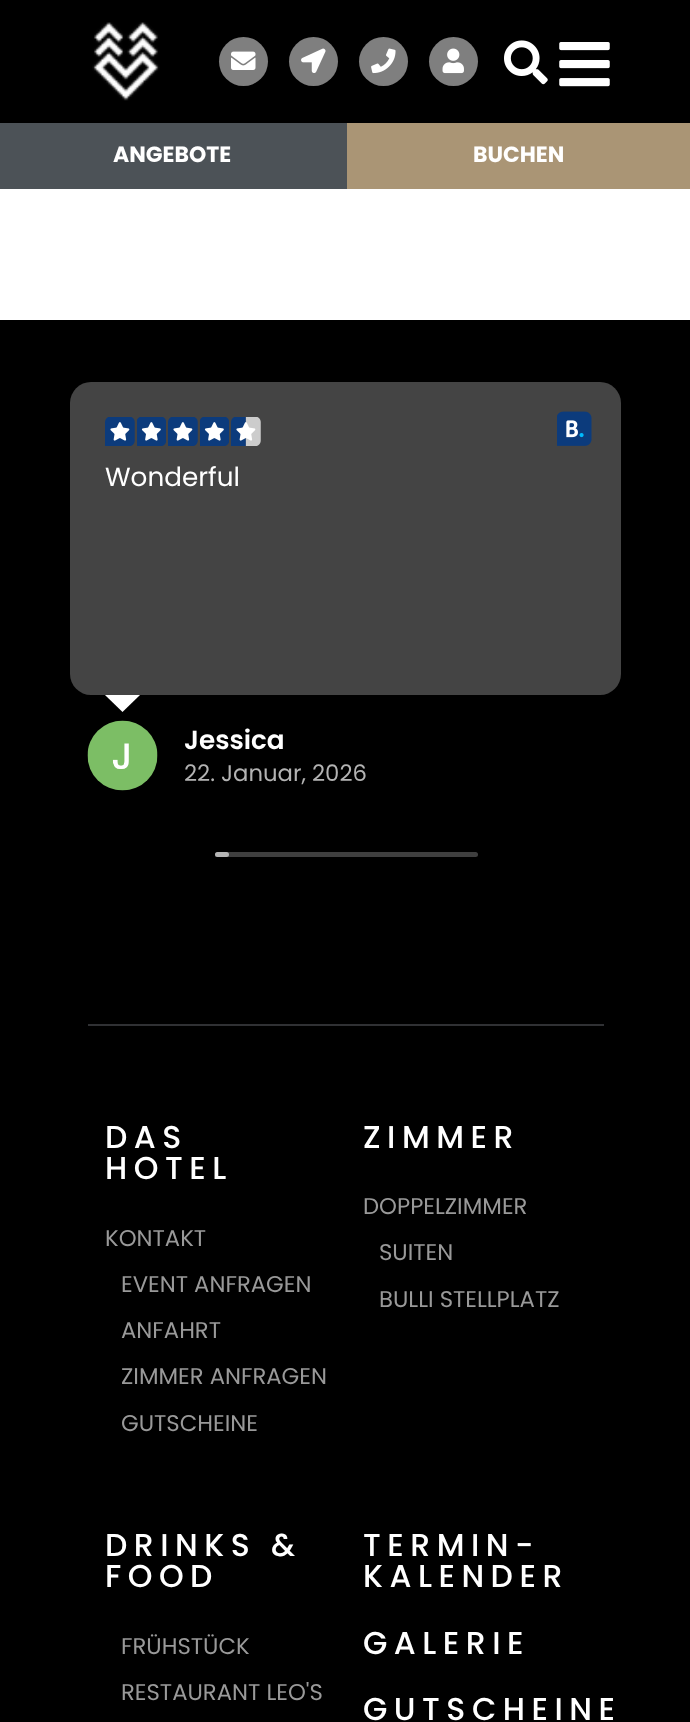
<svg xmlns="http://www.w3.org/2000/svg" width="690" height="1722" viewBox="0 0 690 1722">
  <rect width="100%" height="100%" fill="#fff"/>
  <path d="M0 0h690v123H0z" fill="#000"/>
  <image x="92" y="22" width="68" height="79" href="img/1.png"/>
  <circle cx="243.5" cy="61.5" r="24.5" fill="#7f7f7f"/>
  <image x="231" y="51" width="25" height="19" href="img/2.png"/>
  <circle cx="313.5" cy="61.5" r="24.5" fill="#7f7f7f"/>
  <image x="301" y="48" width="25" height="25" href="img/3.png"/>
  <circle cx="383.5" cy="61.5" r="24.5" fill="#7f7f7f"/>
  <image x="371" y="48" width="25" height="26" href="img/4.png"/>
  <circle cx="453.5" cy="61.5" r="24.5" fill="#7f7f7f"/>
  <image x="442" y="48" width="22" height="26" href="img/5.png"/>
  <image x="504" y="40" width="44" height="45" href="img/6.png"/>
  <image x="559" y="42" width="51" height="45" href="img/7.png"/>
  <path d="M0 123h347v66H0z" fill="#4c5257"/>
  <path d="M347 123h343v66H347z" fill="#aa9575"/>
  <path d="M0 320h690v1402H0z" fill="#000"/>
  <rect x="70" y="382" width="551" height="313" rx="21" fill="#444"/>
  <image x="557" y="411" width="35" height="35" href="img/8.png"/>
  <image x="105" y="417" width="30" height="29" href="img/9.png"/>
  <image x="137" y="417" width="29" height="29" href="img/10.png"/>
  <image x="168" y="417" width="30" height="29" href="img/9.png"/>
  <image x="200" y="417" width="29" height="29" href="img/10.png"/>
  <image x="231" y="417" width="30" height="29" href="img/11.png"/>
  <path d="M105 695H140L122.5 712Z" fill="#fff"/>
  <image x="87" y="720" width="71" height="71" href="img/12.png"/>
  <rect x="215" y="852" width="263" height="5" rx="2.5" fill="#3f3f3f"/>
  <rect x="215" y="852" width="14" height="5" rx="2.5" fill="#b5b5b5"/>
  <path d="M88 1024h516v2H88z" fill="#303134"/>
  <g font-family="Poppins" font-size="22" font-weight="bold" fill="#fff">
    <text x="113" y="162">ANGEBOTE</text>
    <text x="473" y="162">BUCHEN</text>
  </g>
  <text x="105" y="486" font-family="Poppins" font-size="26.25" fill="#fff">Wonderful</text>
  <text x="184" y="749" font-family="Poppins" font-size="26.25" font-weight="600" fill="#fff">Jessica</text>
  <text x="184" y="781" font-family="Poppins" font-size="22.75" fill="#b3b3b3">22. Januar, 2026</text>
  <g font-family="Poppins" font-size="31.5" font-weight="500" letter-spacing="6.5" fill="#fff">
    <text x="105" y="1148">DAS</text>
    <text x="105" y="1179">HOTEL</text>
  </g>
  <g font-family="Poppins" font-size="22.75" fill="#999">
    <text x="105" y="1246">KONTAKT</text>
    <text x="121" y="1292">EVENT ANFRAGEN</text>
    <text x="121" y="1338">ANFAHRT</text>
    <text x="121" y="1384">ZIMMER ANFRAGEN</text>
    <text x="121" y="1431">GUTSCHEINE</text>
  </g>
  <text x="363" y="1148" font-family="Poppins" font-size="31.5" font-weight="500" letter-spacing="6.5" fill="#fff">ZIMMER</text>
  <g font-family="Poppins" font-size="22.75" fill="#999">
    <text x="363" y="1214">DOPPELZIMMER</text>
    <text x="379" y="1260">SUITEN</text>
    <text x="379" y="1307">BULLI STELLPLATZ</text>
  </g>
  <g font-family="Poppins" font-size="31.5" font-weight="500" letter-spacing="6.5" fill="#fff">
    <text x="105" y="1556">DRINKS &amp;</text>
    <text x="105" y="1587">FOOD</text>
  </g>
  <g font-family="Poppins" font-size="22.75" fill="#999">
    <text x="121" y="1654">FRÜHSTÜCK</text>
    <text x="121" y="1700">RESTAURANT LEO'S</text>
  </g>
  <g font-family="Poppins" font-size="31.5" font-weight="500" letter-spacing="6.5" fill="#fff">
    <text x="363" y="1556">TERMIN-</text>
    <text x="363" y="1587">KALENDER</text>
    <text x="363" y="1654">GALERIE</text>
    <text x="363" y="1720">GUTSCHEINE</text>
  </g>
</svg>
